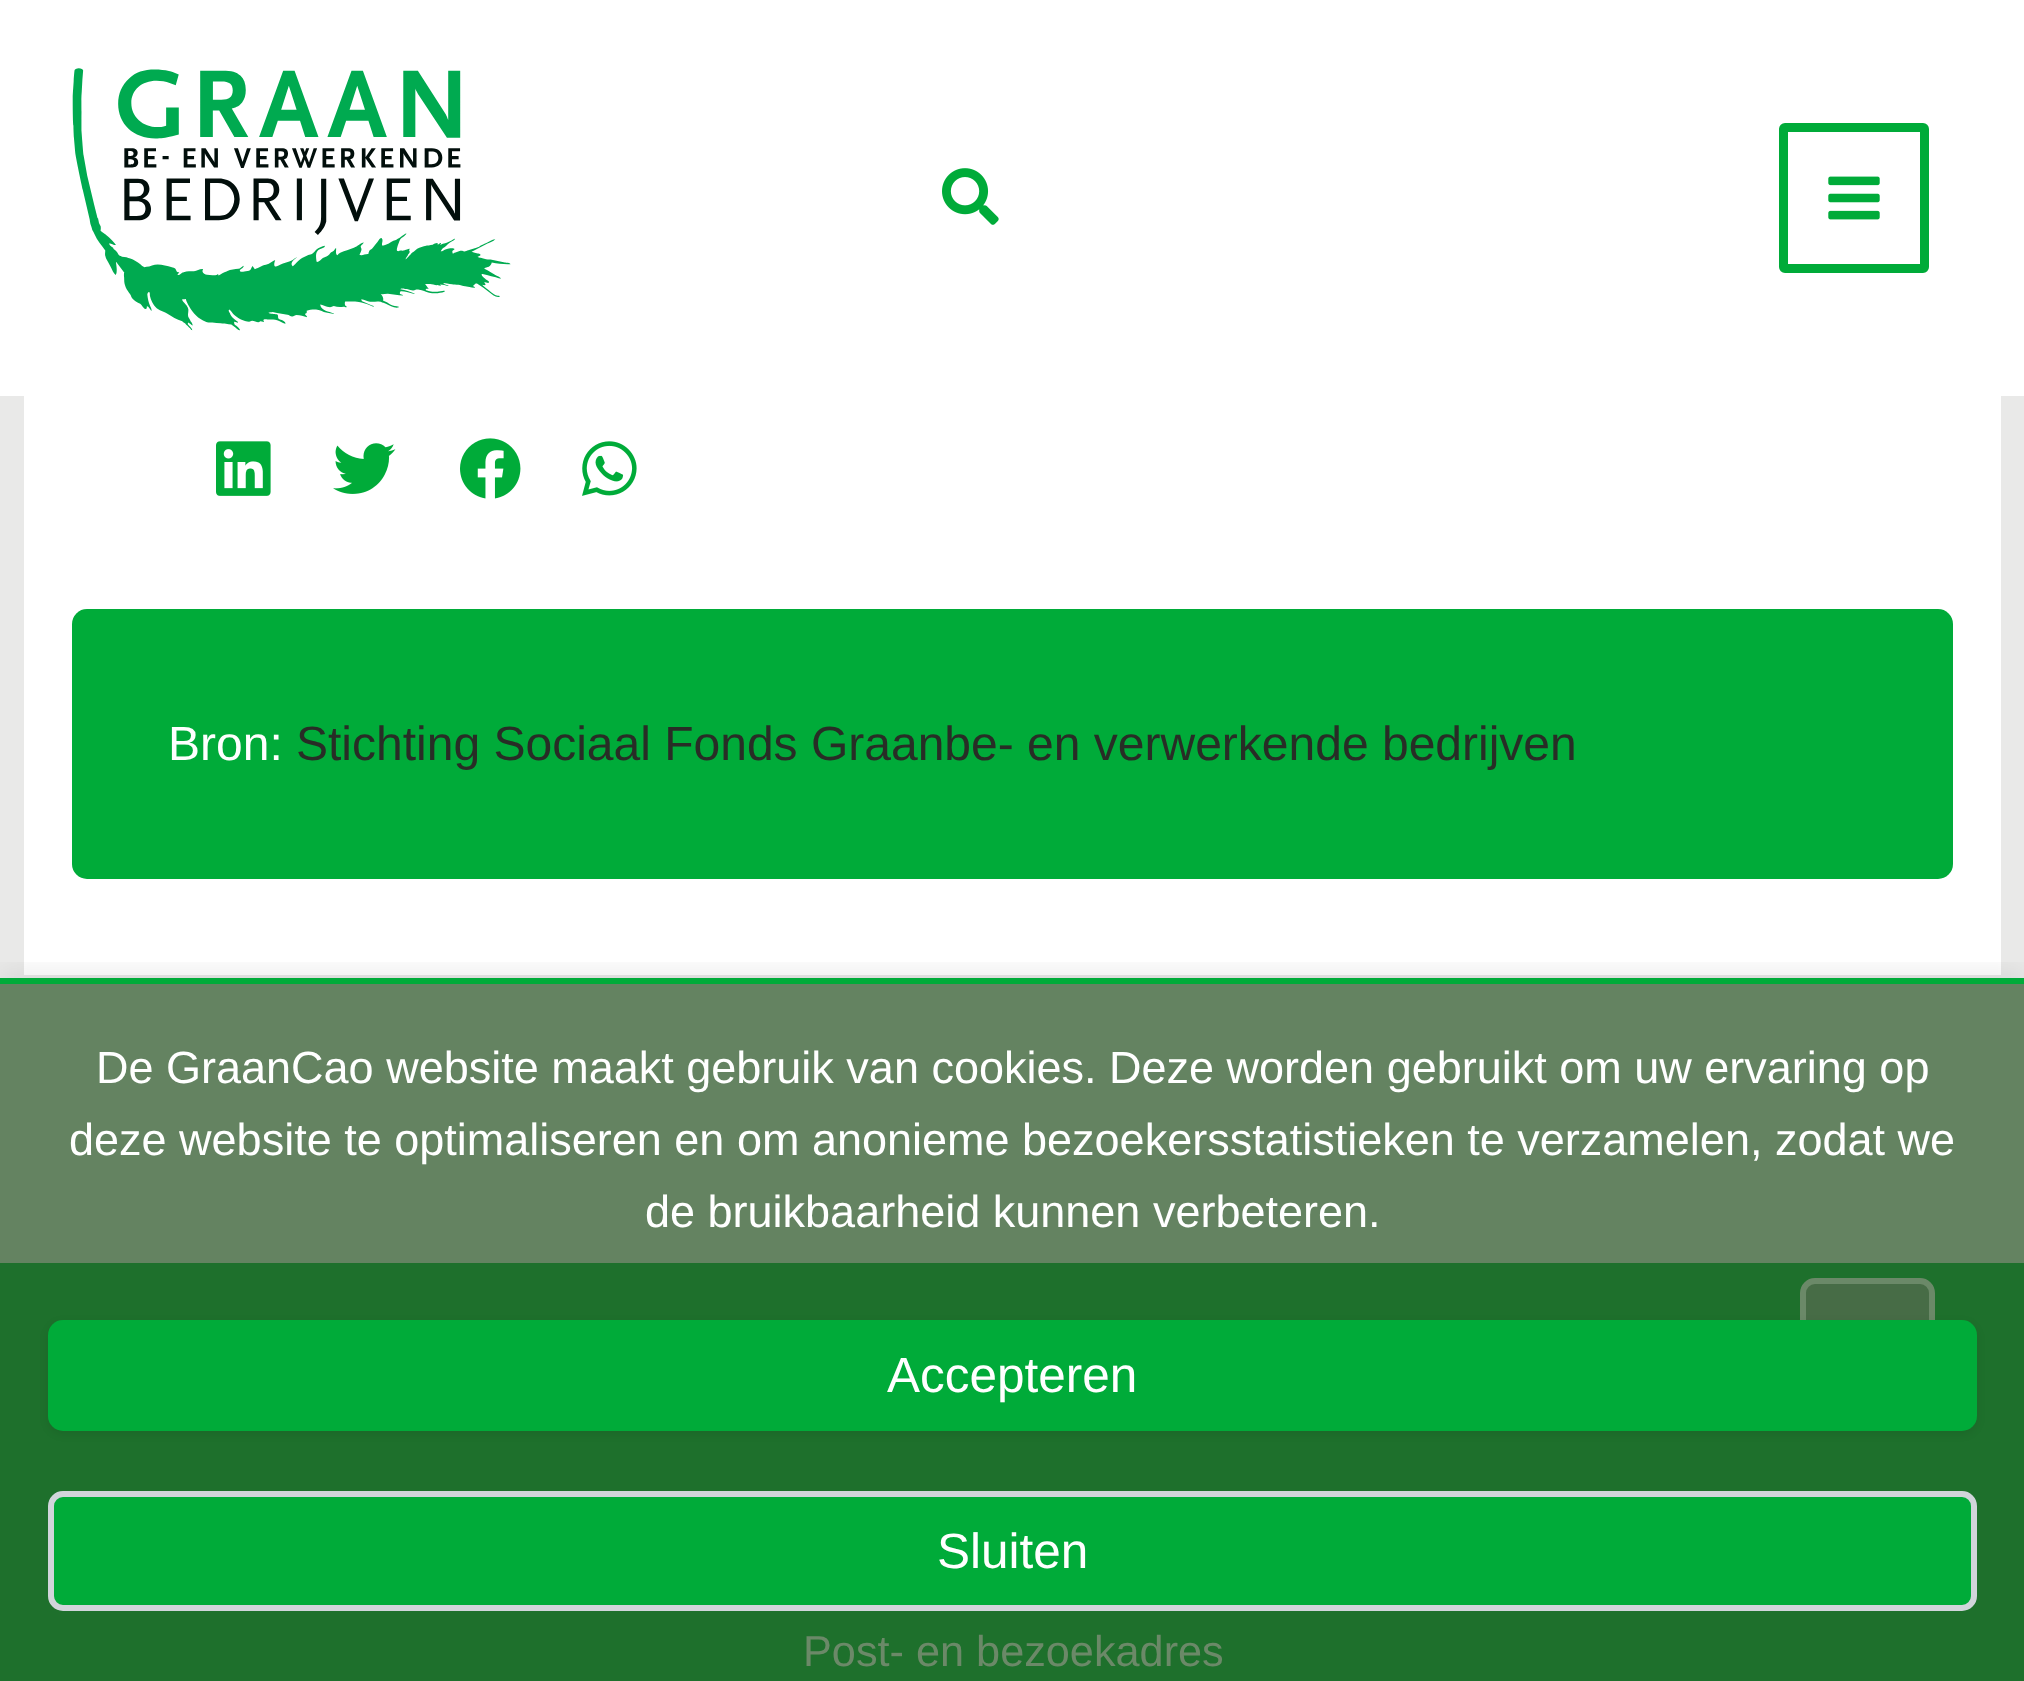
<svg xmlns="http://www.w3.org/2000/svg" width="2024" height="1681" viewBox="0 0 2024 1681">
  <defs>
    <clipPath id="clip1"><path d="M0 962h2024v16H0z"/></clipPath>
  </defs>
  <rect width="100%" height="100%" fill="#e9e9e8"/>
  <path d="M0 984h2024v279H0z" fill="#648361"/>
  <path d="M0 0h2024v396H0z" fill="#fff"/>
  <image x="72" y="68" width="439" height="263" href="img/1.png"/>
  <image x="942" y="168" width="57" height="57" href="img/2.png"/>
  <rect x="1783.5" y="127.5" width="141" height="141" rx="1.5" fill="none" stroke="#00ab39" stroke-width="9"/>
  <image x="1828" y="176" width="52" height="44" href="img/3.png"/>
  <path d="M24 396h1977v579H24z" fill="#fff"/>
  <image x="216" y="441" width="55" height="55" href="img/4.png"/>
  <image x="333" y="443" width="63" height="51" href="img/5.png"/>
  <image x="460" y="438" width="61" height="61" href="img/6.png"/>
  <image x="582" y="441" width="55" height="55" href="img/7.png"/>
  <rect x="72" y="609" width="1881" height="270" rx="15" fill="#00ab39"/>
  <path d="M0 1263h2024v418H0z" fill="#1e702c"/>
  <rect x="1803" y="1281" width="129" height="129" rx="12" fill="#476c46" stroke="#6b8968" stroke-width="6"/>
  <g clip-path="url(#clip1)">
    <path d="M0 972h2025v705H0z" fill="#00000014" filter="blur(15px)"/>
  </g>
  <path d="M0 978h2024v6H0z" fill="#00ab39"/>
  <rect x="48" y="1323" width="1929" height="111" rx="15" fill="#00000014" filter="blur(4.5px)"/>
  <rect x="48" y="1320" width="1929" height="111" rx="15" fill="#00ab39"/>
  <rect x="51" y="1494" width="1923" height="114" rx="12" fill="#00ab39" stroke="#d1d5db" stroke-width="6"/>
  <text x="168" y="760" font-family="Liberation Sans" font-size="48" fill="#fff">Bron:</text>
  <text x="296" y="760" font-family="Liberation Sans" font-size="48" fill="#282d26">Stichting Sociaal Fonds Graanbe- en verwerkende bedrijven</text>
  <text x="803" y="1666" font-family="Liberation Sans" font-size="43.25" fill="#6b8968">Post- en bezoekadres</text>
  <g font-family="Liberation Sans" font-size="45" fill="#fff">
    <text x="96" y="1083">De GraanCao website maakt gebruik van cookies. Deze worden gebruikt om uw ervaring op</text>
    <text x="69" y="1155">deze website te optimaliseren en om anonieme bezoekersstatistieken te verzamelen, zodat we</text>
    <text x="645" y="1227">de bruikbaarheid kunnen verbeteren.</text>
  </g>
  <g font-family="Liberation Sans" font-size="49.5" fill="#fff">
    <text x="887" y="1392">Accepteren</text>
    <text x="937" y="1568">Sluiten</text>
  </g>
</svg>
